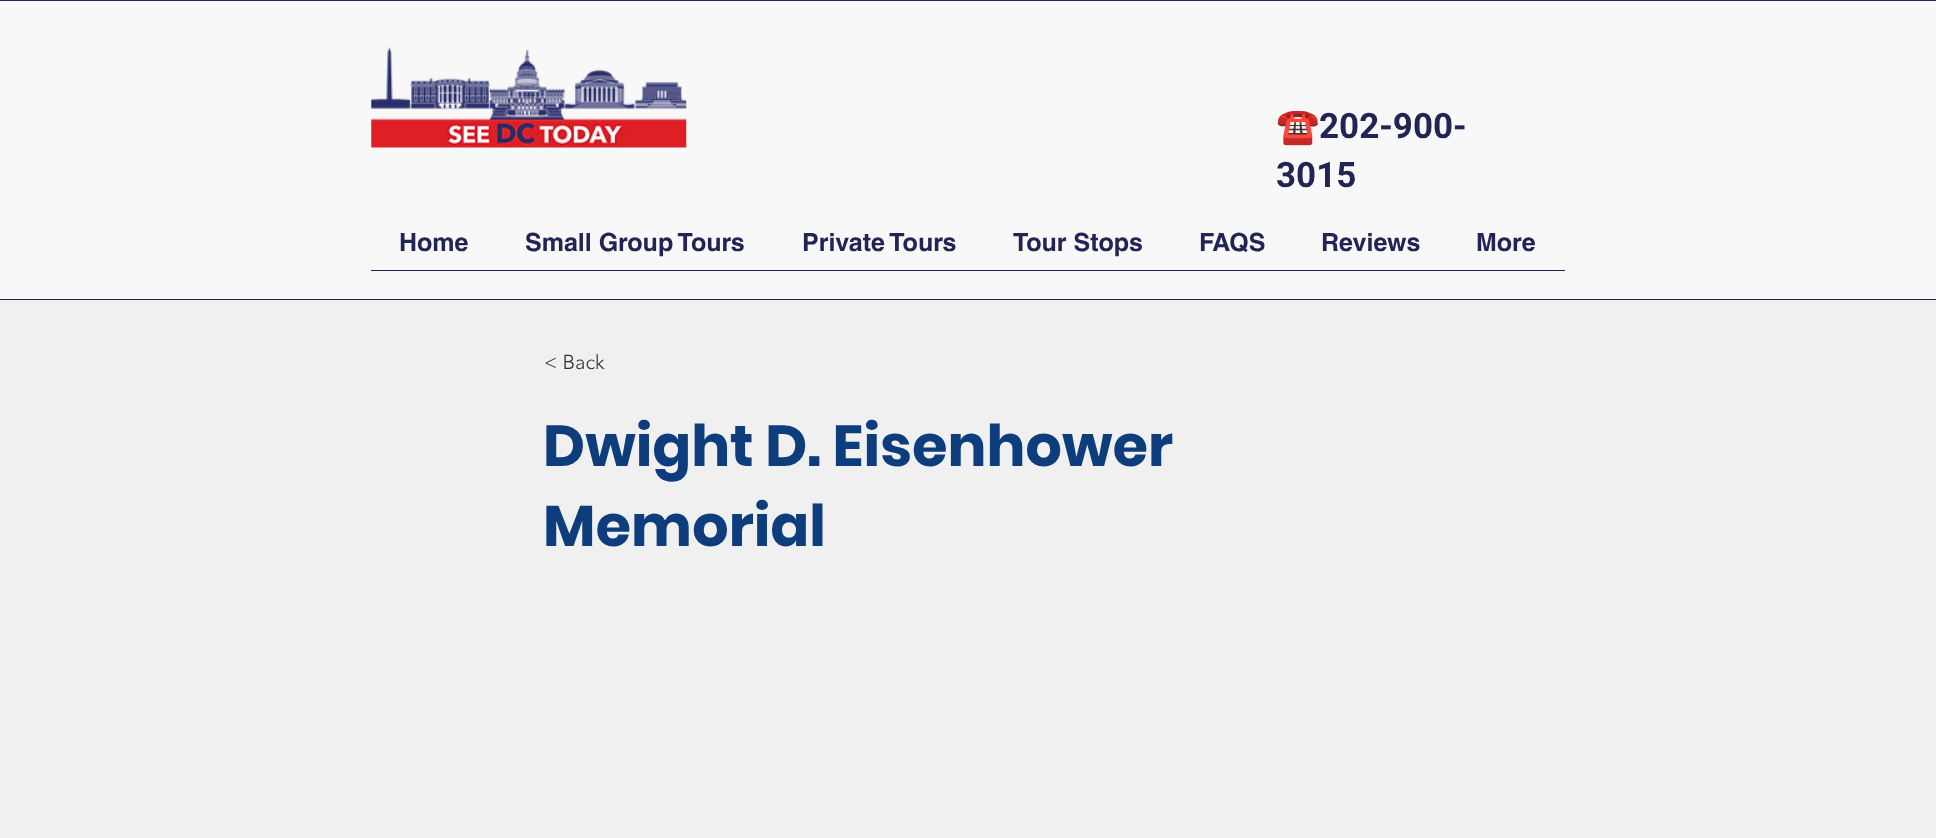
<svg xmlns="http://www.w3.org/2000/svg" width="1936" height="838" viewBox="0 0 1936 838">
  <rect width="100%" height="100%" fill="#f8f8f8"/>
  <path d="M0 0h1936v1H0z" fill="#222554"/>
  <path d="M0 299h1936v1H0z" fill="#222554"/>
  <image x="371" y="47" width="316" height="101" href="img/1.png"/>
  <path d="M371 270h1194v1H371z" fill="#222554"/>
  <path d="M0 300h1936v538H0z" fill="#f0f0f0"/>
  <text x="1276" y="138" font-family="Noto Color Emoji" font-size="35" fill="#222554">☎️</text>
  <g font-family="Roboto" font-size="35" font-weight="bold" fill="#222554">
    <text x="1319" y="138">202-900-</text>
    <text x="1276" y="187">3015</text>
  </g>
  <g font-family="helvetica" font-size="25" font-weight="bold" fill="#222554">
    <text x="399" y="251">Home</text>
    <text x="525" y="251">Small Group Tours</text>
    <text x="802" y="251">Private Tours</text>
    <text x="1013" y="251">Tour Stops</text>
    <text x="1199" y="251">FAQS</text>
    <text x="1321" y="251">Reviews</text>
    <text x="1476" y="251">More</text>
  </g>
  <text x="544" y="369" font-family="'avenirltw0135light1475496'" font-size="20" font-weight="300" fill="#333">&lt; Back</text>
  <g font-family="Poppins" font-size="57.5" font-weight="bold" fill="#0e3d7e">
    <text x="543" y="466">Dwight D. Eisenhower</text>
    <text x="543" y="546">Memorial</text>
  </g>
</svg>
